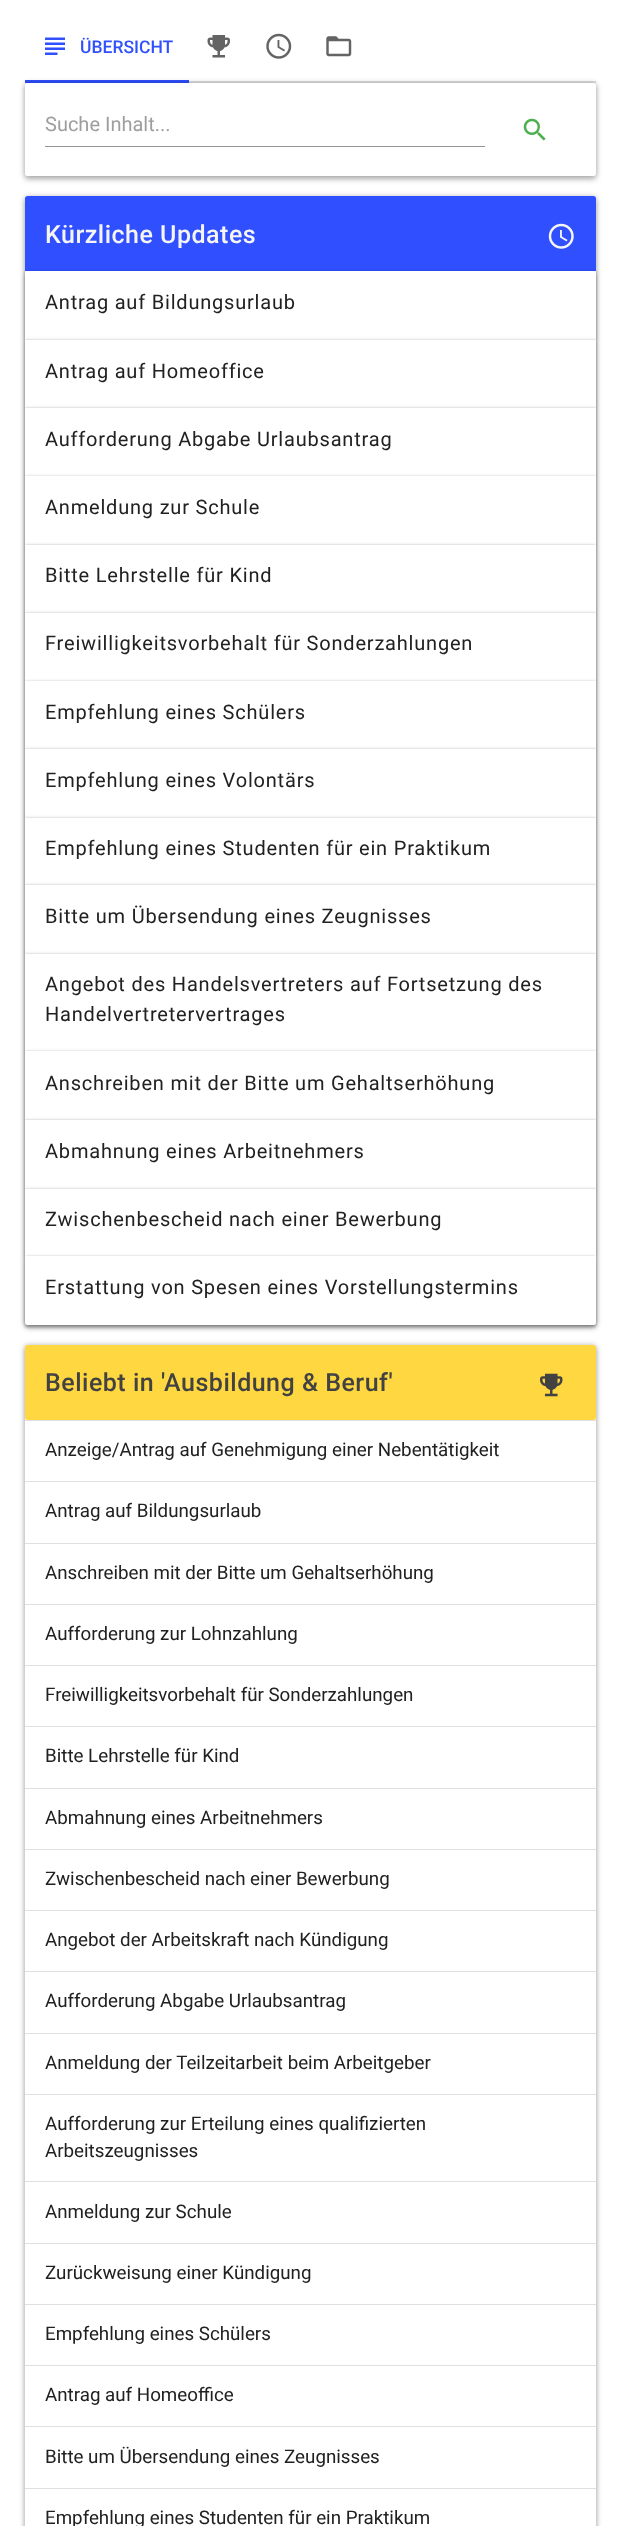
<svg xmlns="http://www.w3.org/2000/svg" width="621" height="2526" viewBox="0 0 621 2526">
  <defs>
    <clipPath id="clip1"><path d="M25 10h571v73H25z"/></clipPath>
  </defs>
  <rect width="100%" height="100%" fill="#fff"/>
  <g clip-path="url(#clip1)">
    <path d="M-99-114H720V206H-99ZM25 6H596C597 6 598 7 598 8V80C598 81 597 81 596 81H25C24 81 24 81 24 80V8C24 7 24 6 25 6Z" fill="#e0e0e0" fill-rule="evenodd"/>
  </g>
  <image x="45" y="37" width="20" height="18" href="img/1.png"/>
  <path d="M25 80h164v3H25z" fill="#304ffe"/>
  <image x="207" y="35" width="23" height="23" href="img/2.png"/>
  <image x="266" y="33" width="26" height="26" href="img/3.png"/>
  <image x="326" y="36" width="26" height="21" href="img/4.png"/>
  <rect x="25" y="84" width="571" height="94" rx="2.5" fill="#00000033" filter="blur(3px)"/>
  <rect x="25" y="86" width="571" height="94" rx="2.5" fill="#0000001f" filter="blur(2.5px)"/>
  <rect x="25" y="83" width="571" height="93" rx="2.5" fill="#00000024" filter="blur(2.5px)"/>
  <rect x="25" y="83" width="571" height="93" rx="2.5" fill="#fff"/>
  <path d="M45 146h440v1H45z" fill="#949494"/>
  <image x="523" y="118" width="23" height="23" href="img/5.png"/>
  <rect x="25" y="198" width="571" height="1128" rx="2.5" fill="#00000033" filter="blur(3px)"/>
  <rect x="25" y="200" width="571" height="1129" rx="2.5" fill="#0000001f" filter="blur(2.5px)"/>
  <rect x="25" y="196" width="571" height="1129" rx="2.5" fill="#00000024" filter="blur(2.5px)"/>
  <rect x="25" y="196" width="571" height="1129" rx="2.5" fill="#fff"/>
  <path d="M27.5 196H593.5C595 196 596 197 596 198.5V271H25V198.5C25 197 26 196 27.5 196Z" fill="#304ffe"/>
  <image x="548" y="223" width="26" height="26" href="img/6.png"/>
  <rect x="25" y="273" width="571" height="68" rx="2.5" fill="#00000033" filter="blur(2px)"/>
  <rect x="25" y="274" width="571" height="69" rx="2.5" fill="#0000001f" filter="blur(1px)"/>
  <rect x="25" y="271" width="571" height="69" rx="2.5" fill="#00000024" filter="blur(1px)"/>
  <path d="M27.5 271H593.5C595 271 596 272 596 273.5V340H25V273.5C25 272 26 271 27.5 271Z" fill="#fff"/>
  <path d="M25 341h571v68H25z" fill="#00000033" filter="blur(2px)"/>
  <path d="M25 343h571v67H25z" fill="#0000001f" filter="blur(1px)"/>
  <path d="M25 340h571v68H25z" fill="#00000024" filter="blur(1px)"/>
  <path d="M25 340h571v68H25z" fill="#fff"/>
  <path d="M25 409h571v69H25z" fill="#00000033" filter="blur(2px)"/>
  <path d="M25 410h571v69H25z" fill="#0000001f" filter="blur(1px)"/>
  <path d="M25 408h571v68H25z" fill="#00000024" filter="blur(1px)"/>
  <path d="M25 408h571v68H25z" fill="#fff"/>
  <path d="M25 478h571v68H25z" fill="#00000033" filter="blur(2px)"/>
  <path d="M25 479h571v69H25z" fill="#0000001f" filter="blur(1px)"/>
  <path d="M25 476h571v69H25z" fill="#00000024" filter="blur(1px)"/>
  <path d="M25 476h571v69H25z" fill="#fff"/>
  <path d="M25 546h571v68H25z" fill="#00000033" filter="blur(2px)"/>
  <path d="M25 548h571v67H25z" fill="#0000001f" filter="blur(1px)"/>
  <path d="M25 545h571v68H25z" fill="#00000024" filter="blur(1px)"/>
  <path d="M25 545h571v68H25z" fill="#fff"/>
  <path d="M25 614h571v69H25z" fill="#00000033" filter="blur(2px)"/>
  <path d="M25 615h571v69H25z" fill="#0000001f" filter="blur(1px)"/>
  <path d="M25 613h571v68H25z" fill="#00000024" filter="blur(1px)"/>
  <path d="M25 613h571v68H25z" fill="#fff"/>
  <path d="M25 683h571v67H25z" fill="#00000033" filter="blur(2px)"/>
  <path d="M25 684h571v67H25z" fill="#0000001f" filter="blur(1px)"/>
  <path d="M25 681h571v68H25z" fill="#00000024" filter="blur(1px)"/>
  <path d="M25 681h571v68H25z" fill="#fff"/>
  <path d="M25 750h571v69H25z" fill="#00000033" filter="blur(2px)"/>
  <path d="M25 751h571v69H25z" fill="#0000001f" filter="blur(1px)"/>
  <path d="M25 749h571v69H25z" fill="#00000024" filter="blur(1px)"/>
  <path d="M25 749h571v69H25z" fill="#fff"/>
  <path d="M25 819h571v67H25z" fill="#00000033" filter="blur(2px)"/>
  <path d="M25 820h571v68H25z" fill="#0000001f" filter="blur(1px)"/>
  <path d="M25 818h571v67H25z" fill="#00000024" filter="blur(1px)"/>
  <path d="M25 818h571v67H25z" fill="#fff"/>
  <path d="M25 886h571v69H25z" fill="#00000033" filter="blur(2px)"/>
  <path d="M25 888h571v68H25z" fill="#0000001f" filter="blur(1px)"/>
  <path d="M25 885h571v69H25z" fill="#00000024" filter="blur(1px)"/>
  <path d="M25 885h571v69H25z" fill="#fff"/>
  <path d="M25 955h571v98H25z" fill="#00000033" filter="blur(2px)"/>
  <path d="M25 956h571v98H25z" fill="#0000001f" filter="blur(1px)"/>
  <path d="M25 954h571v97H25z" fill="#00000024" filter="blur(1px)"/>
  <path d="M25 954h571v97H25z" fill="#fff"/>
  <path d="M25 1053h571v68H25z" fill="#00000033" filter="blur(2px)"/>
  <path d="M25 1054h571v69H25z" fill="#0000001f" filter="blur(1px)"/>
  <path d="M25 1051h571v69H25z" fill="#00000024" filter="blur(1px)"/>
  <path d="M25 1051h571v69H25z" fill="#fff"/>
  <path d="M25 1121h571v69H25z" fill="#00000033" filter="blur(2px)"/>
  <path d="M25 1123h571v68H25z" fill="#0000001f" filter="blur(1px)"/>
  <path d="M25 1120h571v69H25z" fill="#00000024" filter="blur(1px)"/>
  <path d="M25 1120h571v69H25z" fill="#fff"/>
  <path d="M25 1190h571v68H25z" fill="#00000033" filter="blur(2px)"/>
  <path d="M25 1191h571v68H25z" fill="#0000001f" filter="blur(1px)"/>
  <path d="M25 1189h571v67H25z" fill="#00000024" filter="blur(1px)"/>
  <path d="M25 1189h571v67H25z" fill="#fff"/>
  <rect x="25" y="1258" width="571" height="68" rx="2.5" fill="#00000033" filter="blur(2px)"/>
  <rect x="25" y="1259" width="571" height="69" rx="2.5" fill="#0000001f" filter="blur(1px)"/>
  <rect x="25" y="1256" width="571" height="69" rx="2.5" fill="#00000024" filter="blur(1px)"/>
  <path d="M25 1256H596V1322.5C596 1324 595 1325 593.5 1325H27.5C26 1325 25 1324 25 1322.5Z" fill="#fff"/>
  <rect x="25" y="1346" width="571" height="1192" rx="2.5" fill="#00000033" filter="blur(3px)"/>
  <rect x="25" y="1349" width="571" height="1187" rx="2.5" fill="#0000001f" filter="blur(2.5px)"/>
  <rect x="25" y="1345" width="571" height="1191" rx="2.5" fill="#00000024" filter="blur(2.5px)"/>
  <rect x="25" y="1345" width="571" height="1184" rx="2.5" fill="#fff"/>
  <rect x="25" y="1345" width="571" height="75" rx="2.5" fill="#ffd740"/>
  <image x="540" y="1373" width="23" height="24" href="img/7.png"/>
  <path d="M25 1420h571v1H25z" fill="#e0e0e0"/>
  <path d="M25 1481h571v1H25z" fill="#e0e0e0"/>
  <path d="M25 1543h571v1H25z" fill="#e0e0e0"/>
  <path d="M25 1604h571v1H25z" fill="#e0e0e0"/>
  <path d="M25 1665h571v1H25z" fill="#e0e0e0"/>
  <path d="M25 1726h571v1H25z" fill="#e0e0e0"/>
  <path d="M25 1788h571v1H25z" fill="#e0e0e0"/>
  <path d="M25 1849h571v1H25z" fill="#e0e0e0"/>
  <path d="M25 1910h571v1H25z" fill="#e0e0e0"/>
  <path d="M25 1971h571v1H25z" fill="#e0e0e0"/>
  <path d="M25 2033h571v1H25z" fill="#e0e0e0"/>
  <path d="M25 2094h571v1H25z" fill="#e0e0e0"/>
  <path d="M25 2181h571v1H25z" fill="#e0e0e0"/>
  <path d="M25 2243h571v1H25z" fill="#e0e0e0"/>
  <path d="M25 2304h571v1H25z" fill="#e0e0e0"/>
  <path d="M25 2365h571v1H25z" fill="#e0e0e0"/>
  <path d="M25 2426h571v1H25z" fill="#e0e0e0"/>
  <path d="M25 2488h571v1H25z" fill="#e0e0e0"/>
  <text x="80" y="53" font-family="Roboto" font-size="17.5" font-weight="500" fill="#304ffe">ÜBERSICHT</text>
  <text x="45" y="131" font-family="Roboto" font-size="20" fill="#9e9e9e">Suche Inhalt...</text>
  <text x="45" y="243" font-family="Roboto" font-size="25" font-weight="500" letter-spacing="0.5" fill="#f5f5f5">Kürzliche Updates</text>
  <g font-family="Roboto" font-size="20" letter-spacing="0.8" fill="#212121">
    <text x="45" y="309">Antrag auf Bildungsurlaub</text>
    <text x="45" y="378">Antrag auf Homeoffice</text>
    <text x="45" y="446">Aufforderung Abgabe Urlaubsantrag</text>
    <text x="45" y="514">Anmeldung zur Schule</text>
    <text x="45" y="582">Bitte Lehrstelle für Kind</text>
    <text x="45" y="650">Freiwilligkeitsvorbehalt für Sonderzahlungen</text>
    <text x="45" y="719">Empfehlung eines Schülers</text>
    <text x="45" y="787">Empfehlung eines Volontärs</text>
    <text x="45" y="855">Empfehlung eines Studenten für ein Praktikum</text>
    <text x="45" y="923">Bitte um Übersendung eines Zeugnisses</text>
    <text x="45" y="991">Angebot des Handelsvertreters auf Fortsetzung des</text>
    <text x="45" y="1021">Handelvertretervertrages</text>
    <text x="45" y="1090">Anschreiben mit der Bitte um Gehaltserhöhung</text>
    <text x="45" y="1158">Abmahnung eines Arbeitnehmers</text>
    <text x="45" y="1226">Zwischenbescheid nach einer Bewerbung</text>
    <text x="45" y="1294">Erstattung von Spesen eines Vorstellungstermins</text>
  </g>
  <text x="45" y="1391" font-family="Roboto" font-size="25" font-weight="500" letter-spacing="0.5" fill="#424242">Beliebt in 'Ausbildung &amp; Beruf'</text>
  <g font-family="Roboto" font-size="18.75" fill="#212121">
    <text x="45" y="1456">Anzeige/Antrag auf Genehmigung einer Nebentätigkeit</text>
    <text x="45" y="1517">Antrag auf Bildungsurlaub</text>
    <text x="45" y="1579">Anschreiben mit der Bitte um Gehaltserhöhung</text>
    <text x="45" y="1640">Aufforderung zur Lohnzahlung</text>
    <text x="45" y="1701">Freiwilligkeitsvorbehalt für Sonderzahlungen</text>
    <text x="45" y="1762">Bitte Lehrstelle für Kind</text>
    <text x="45" y="1824">Abmahnung eines Arbeitnehmers</text>
    <text x="45" y="1885">Zwischenbescheid nach einer Bewerbung</text>
    <text x="45" y="1946">Angebot der Arbeitskraft nach Kündigung</text>
    <text x="45" y="2007">Aufforderung Abgabe Urlaubsantrag</text>
    <text x="45" y="2069">Anmeldung der Teilzeitarbeit beim Arbeitgeber</text>
    <text x="45" y="2130">Aufforderung zur Erteilung eines qualifizierten</text>
    <text x="45" y="2157">Arbeitszeugnisses</text>
    <text x="45" y="2218">Anmeldung zur Schule</text>
    <text x="45" y="2279">Zurückweisung einer Kündigung</text>
    <text x="45" y="2340">Empfehlung eines Schülers</text>
    <text x="45" y="2401">Antrag auf Homeoffice</text>
    <text x="45" y="2463">Bitte um Übersendung eines Zeugnisses</text>
    <text x="45" y="2524">Empfehlung eines Studenten für ein Praktikum</text>
  </g>
</svg>
